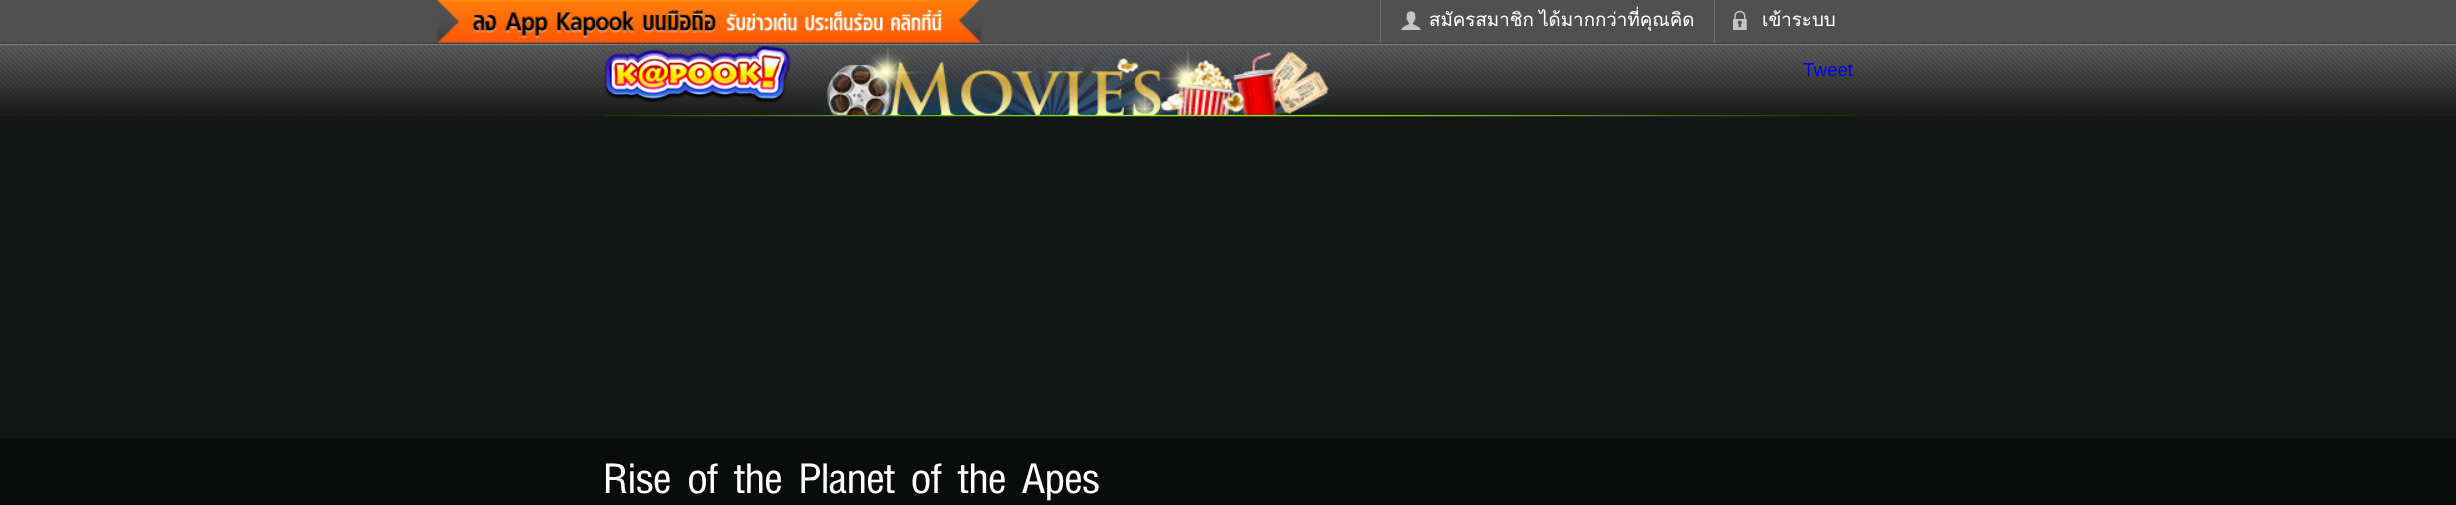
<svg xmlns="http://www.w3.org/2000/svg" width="2456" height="505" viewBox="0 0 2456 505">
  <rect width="100%" height="100%" fill="#131615"/>
  <path d="M0 0h2456v43H0z" fill="#505051"/>
  <path d="M603 42h42v1H603z" fill="#f30000"/>
  <path d="M645 42h1v1H645z" fill="#2e2f2f"/>
  <image x="437" y="0" width="545" height="43" href="img/1.png"/>
  <path d="M1380 0h1v43H1380z" fill="#6e6e6e"/>
  <path d="M1714 0h1v43H1714z" fill="#6e6e6e"/>
  <image x="0" y="43" width="2456" height="73" href="img/2.png"/>
  <image x="603" y="115" width="1251" height="2" href="img/3.png"/>
  <image x="604" y="46" width="187" height="57" href="img/4.png"/>
  <image x="816" y="47" width="521" height="68" href="img/5.png"/>
  <path d="M0 438h2456v67H0z" fill="#0a0b0b"/>
  <text x="1400" y="30" font-family="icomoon" font-size="22" fill="#c5c5c5">!</text>
  <text x="1429" y="26" word-spacing="-1" font-family="Loma" font-size="18.75" fill="#fff">สมัครสมาชิก ได้มากกว่าที่คุณคิด</text>
  <text x="1733" y="30" font-family="icomoon" font-size="22" fill="#c5c5c5">"</text>
  <text x="1762" y="26" font-family="Loma" font-size="18.75" fill="#fff">เข้าระบบ</text>
  <text x="1803" y="76" font-family="Liberation Sans" font-size="18.75" fill="#00e">Tweet</text>
  <text x="603" y="493" font-family="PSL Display" font-size="62.5" fill="#fff">Rise of the Planet of the Apes</text>
</svg>
